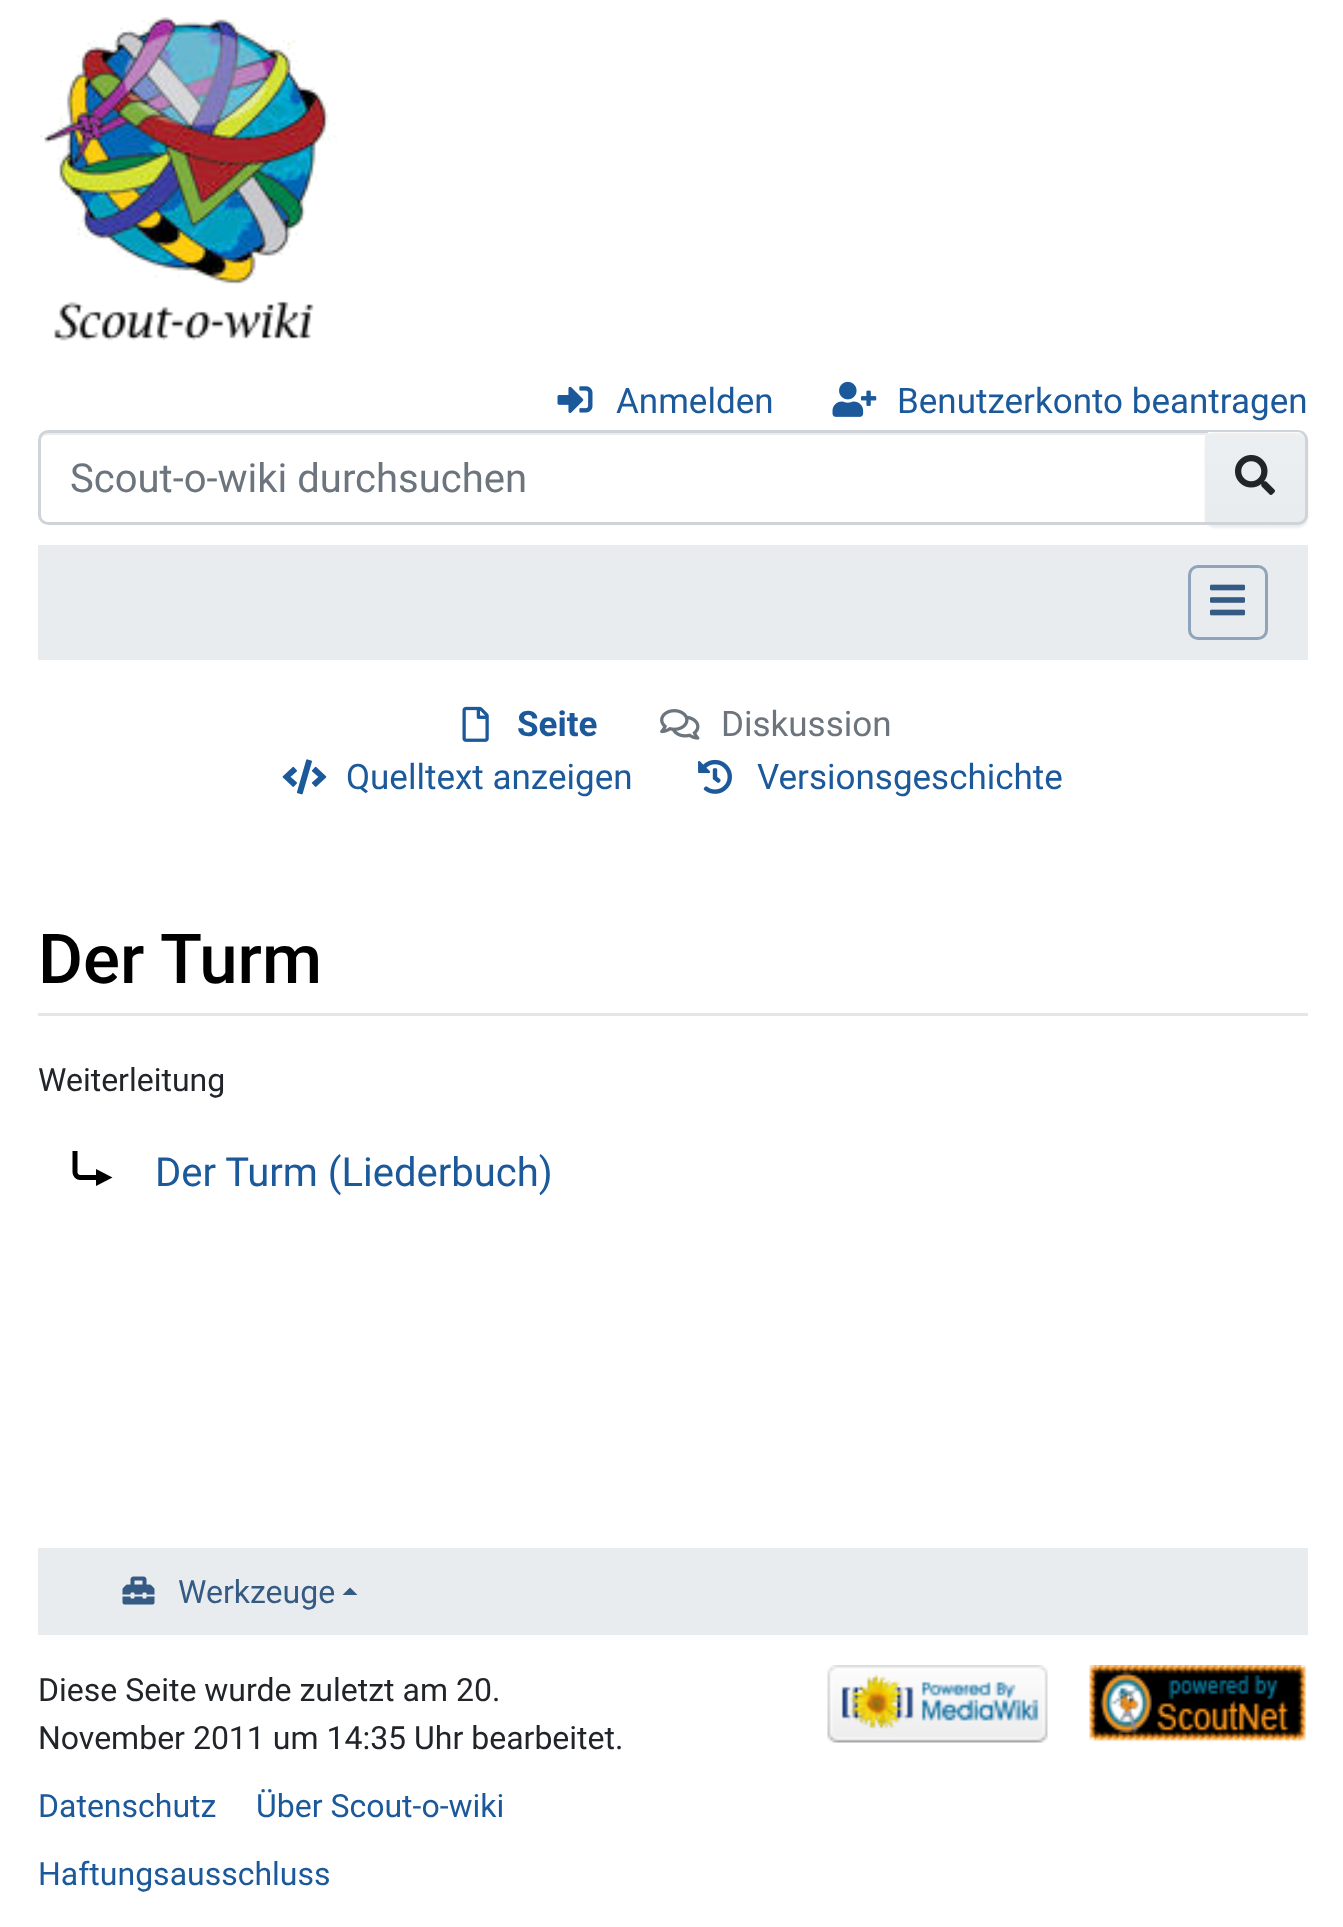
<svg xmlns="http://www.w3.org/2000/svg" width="1343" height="1927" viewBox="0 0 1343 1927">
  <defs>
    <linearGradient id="g1" gradientUnits="userSpaceOnUse" x1="1255" y1="433" x2="1255" y2="523"><stop offset="0" stop-color="#eceff1"/><stop offset="1" stop-color="#e9ecef"/></linearGradient>
  </defs>
  <rect width="100%" height="100%" fill="#fff"/>
  <image x="40" y="17" width="298" height="324" href="img/1.png"/>
  <image x="557" y="386" width="36" height="27" href="img/2.png"/>
  <image x="832" y="381" width="45" height="36" href="img/3.png"/>
  <path d="M48 435H1205V433H48C43 433 40 437 40 442C40 438 43 435 48 435Z" fill="#ececec"/>
  <path d="M48 431.5H1206.5V523.5H48C43.5 523.5 39.5 519.5 39.5 515V440C39.5 435.5 43.5 431.5 48 431.5Z" fill="none" stroke="#ced4da" stroke-width="3"/>
  <rect x="1205" y="433" width="103" height="95" rx="10" fill="#00000012" filter="blur(1px)"/>
  <path d="M1205 433H1297C1301.5 433 1305 436.5 1305 441V515C1305 519.5 1301.5 523 1297 523H1205Z" fill="url(#g1)"/>
  <path d="M1205 435H1298C1302 435 1305 438 1305 442V441C1305 437 1301 433 1297 433H1205Z" fill="#eff1f3"/>
  <path d="M1205 430H1298C1303 430 1308 434 1308 440V515C1308 521 1303 525 1298 525H1205ZM1205 432H1298C1302 432 1305 436 1305 440V515C1305 519 1302 522 1298 522H1205Z" fill="#ced4da" fill-rule="evenodd"/>
  <image x="1235" y="455" width="40" height="40" href="img/4.png"/>
  <path d="M38 545h1270v115H38z" fill="#e9ecef"/>
  <rect x="1189.5" y="566.5" width="77" height="72" rx="8.5" fill="none" stroke="#8fa4ba" stroke-width="3"/>
  <image x="1210" y="584" width="35" height="32" href="img/5.png"/>
  <image x="462" y="706" width="27" height="36" href="img/6.png"/>
  <image x="660" y="709" width="40" height="31" href="img/7.png"/>
  <image x="282" y="759" width="45" height="36" href="img/8.png"/>
  <image x="698" y="759" width="34" height="35" href="img/9.png"/>
  <path d="M38 1013h1270v3H38z" fill="#e6e6e6"/>
  <path d="M75 1151V1172.5C75 1175 77.5 1177.5 80 1177.5H102.5" fill="none" stroke="#000" stroke-width="5"/>
  <path d="M96 1169V1186L112.5 1177.5Z" fill="#000"/>
  <path d="M38 1548h1270v87H38z" fill="#e9ecef"/>
  <image x="122" y="1576" width="33" height="29" href="img/10.png"/>
  <path d="M357.5 1595H342.5L350 1587.5Z" fill="#355b84"/>
  <image x="827" y="1665" width="221" height="78" href="img/11.png"/>
  <image x="1089" y="1665" width="217" height="76" href="img/12.png"/>
  <g font-family="Roboto" font-size="35" fill="#1b599b">
    <text x="616" y="413">Anmelden</text>
    <text x="897" y="413">Benutzerkonto beantragen</text>
  </g>
  <text x="70" y="492" font-family="Roboto" font-size="40" fill="#6c757d">Scout-o-wiki durchsuchen</text>
  <text x="517" y="736" font-family="Roboto" font-size="35" font-weight="bold" fill="#1b599b">Seite</text>
  <text x="721" y="736" font-family="Roboto" font-size="35" fill="#6c757d">Diskussion</text>
  <g font-family="Roboto" font-size="35" fill="#1b599b">
    <text x="346" y="789">Quelltext anzeigen</text>
    <text x="757" y="789">Versionsgeschichte</text>
  </g>
  <text x="38" y="983" font-family="Roboto" font-size="69" font-weight="500" fill="#000">Der Turm</text>
  <text x="38" y="1091" font-family="Roboto" font-size="32" fill="#212529">Weiterleitung</text>
  <text x="155" y="1186" font-family="Roboto" font-size="40" fill="#1b599b">Der Turm (Liederbuch)</text>
  <text x="178" y="1603" font-family="Roboto" font-size="32" fill="#355b84">Werkzeuge</text>
  <g font-family="Roboto" font-size="32" fill="#212529">
    <text x="38" y="1701">Diese Seite wurde zuletzt am 20.</text>
    <text x="38" y="1749">November 2011 um 14:35 Uhr bearbeitet.</text>
  </g>
  <g font-family="Roboto" font-size="32" fill="#1b599b">
    <text x="38" y="1817">Datenschutz</text>
    <text x="256" y="1817">Über Scout-o-wiki</text>
    <text x="38" y="1885">Haftungsausschluss</text>
  </g>
</svg>
